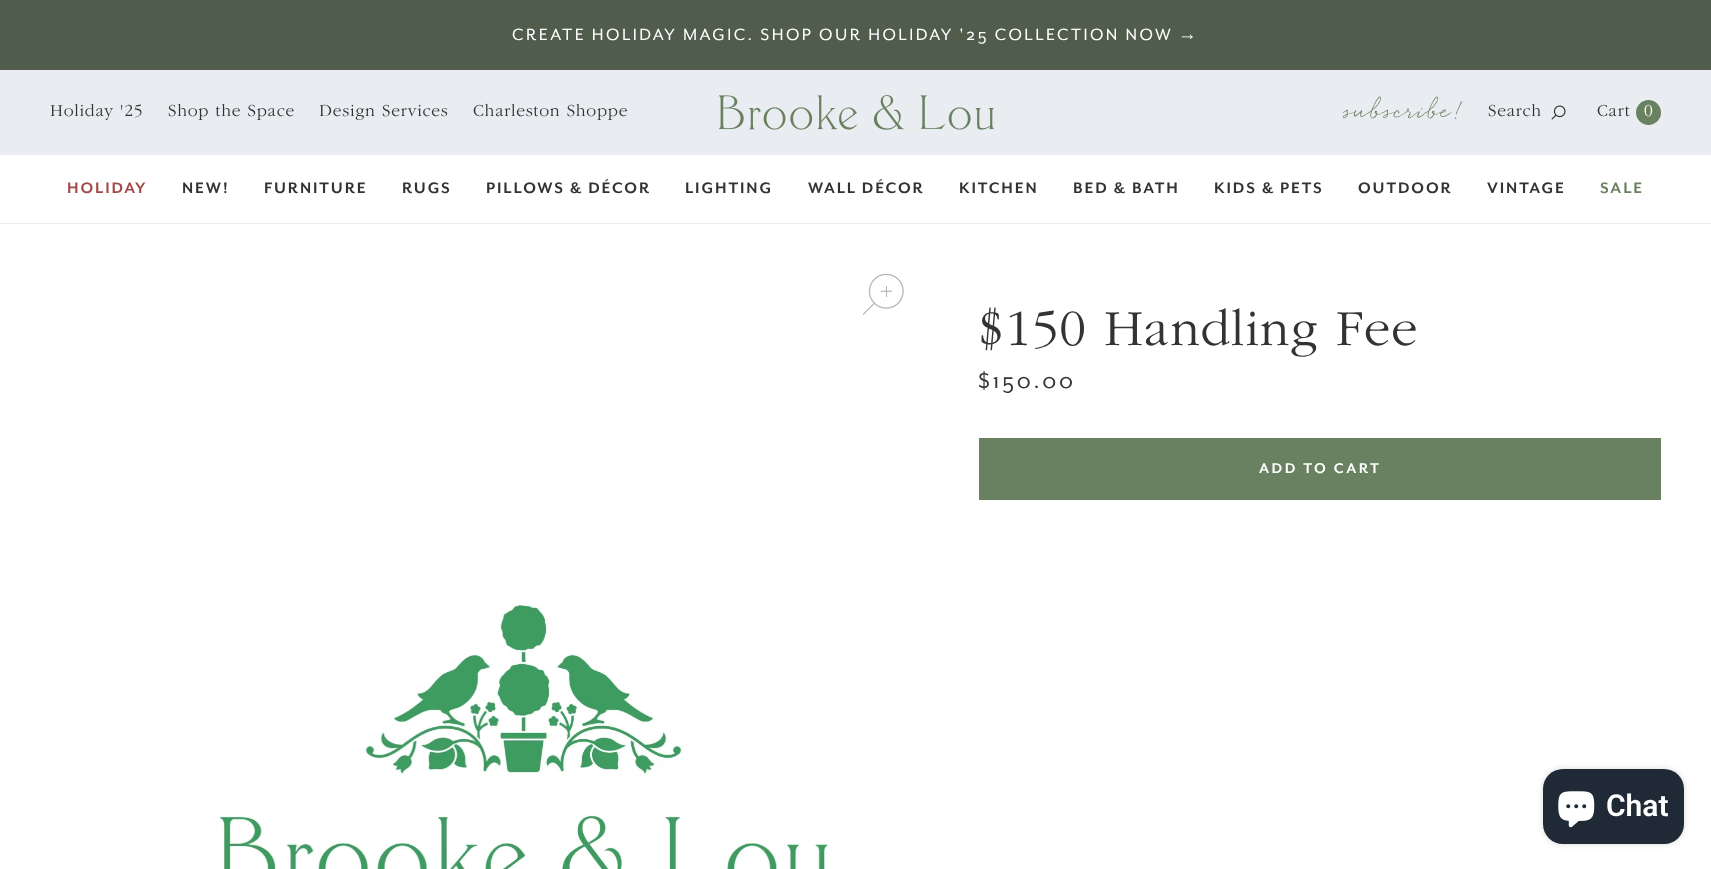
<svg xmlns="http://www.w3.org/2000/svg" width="1711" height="869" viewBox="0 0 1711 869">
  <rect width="100%" height="100%" fill="#fff"/>
  <path d="M0 0h1711v70H0z" fill="#515d4c"/>
  <path d="M0 70h1711v85H0z" fill="#e9edf1"/>
  <image x="719" y="95" width="275" height="35" href="img/1.png"/>
  <image x="1551" y="105" width="15" height="15" href="img/2.png"/>
  <circle cx="1648.5" cy="112.5" r="12.5" fill="#698160"/>
  <path d="M0 223h1711v1H0z" fill="#e9edf1"/>
  <image x="863" y="274" width="41" height="41" href="img/3.png"/>
  <image x="219" y="601" width="609" height="268" href="img/4.png"/>
  <path d="M979 438h682v62H979z" fill="#698160"/>
  <rect x="1543" y="769" width="141" height="75" rx="20" fill="#00000026" filter="blur(3px)"/>
  <rect x="1543" y="769" width="141" height="75" rx="20" fill="#202a36"/>
  <image x="1558" y="791" width="37" height="37" href="img/5.png"/>
  <text x="512" y="40" font-family="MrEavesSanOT" font-size="18.75" letter-spacing="2.48" fill="#fff">CREATE HOLIDAY MAGIC. SHOP OUR HOLIDAY '25 COLLECTION NOW</text>
  <text x="1178" y="40" font-family="Liberation Sans" font-size="18.75" letter-spacing="2.48" fill="#fff">→</text>
  <g font-family="'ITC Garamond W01'" font-size="17.5" font-weight="300" letter-spacing="0.75" fill="#333">
    <text x="50" y="116">Holiday '25</text>
    <text x="168" y="116">Shop the Space</text>
    <text x="319" y="116">Design Services</text>
    <text x="473" y="116">Charleston Shoppe</text>
  </g>
  <text x="1344" y="118" font-family="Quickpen" font-size="22.5" letter-spacing="0.75" fill="#698160">subscribe!</text>
  <g font-family="'ITC Garamond W01'" font-size="17.5" font-weight="300" letter-spacing="0.75" fill="#333">
    <text x="1488" y="116">Search</text>
    <text x="1597" y="116">Cart</text>
  </g>
  <text x="1644" y="116" font-family="'ITC Garamond W01'" font-size="17.5" font-weight="300" letter-spacing="0.75" fill="#fff">0</text>
  <text x="67" y="193" font-family="MrEavesSanOT" font-size="17.5" font-weight="bold" letter-spacing="1.9" fill="#a34b4b">HOLIDAY</text>
  <g font-family="MrEavesSanOT" font-size="17.5" font-weight="bold" letter-spacing="1.9" fill="#333">
    <text x="182" y="193">NEW!</text>
    <text x="264" y="193">FURNITURE</text>
    <text x="402" y="193">RUGS</text>
    <text x="486" y="193">PILLOWS &amp; DÉCOR</text>
    <text x="685" y="193">LIGHTING</text>
    <text x="808" y="193">WALL DÉCOR</text>
    <text x="959" y="193">KITCHEN</text>
    <text x="1073" y="193">BED &amp; BATH</text>
    <text x="1214" y="193">KIDS &amp; PETS</text>
    <text x="1358" y="193">OUTDOOR</text>
    <text x="1487" y="193">VINTAGE</text>
  </g>
  <text x="1600" y="193" font-family="MrEavesSanOT" font-size="17.5" font-weight="bold" letter-spacing="1.9" fill="#698160">SALE</text>
  <text x="978" y="345" font-family="'ITC Garamond W01'" font-size="52.5" font-weight="300" letter-spacing="0.9" fill="#333">$150 Handling Fee</text>
  <text x="978" y="388" font-family="MrEavesSanOT" font-size="25" letter-spacing="2.75" fill="#333">$150.00</text>
  <text x="1259" y="473" font-family="MrEavesSanOT" font-size="16.25" font-weight="bold" letter-spacing="2.5" fill="#fff">ADD TO CART</text>
  <text x="1606" y="816" font-family="Roboto" font-size="30" font-weight="600" fill="#fff">Chat</text>
</svg>
